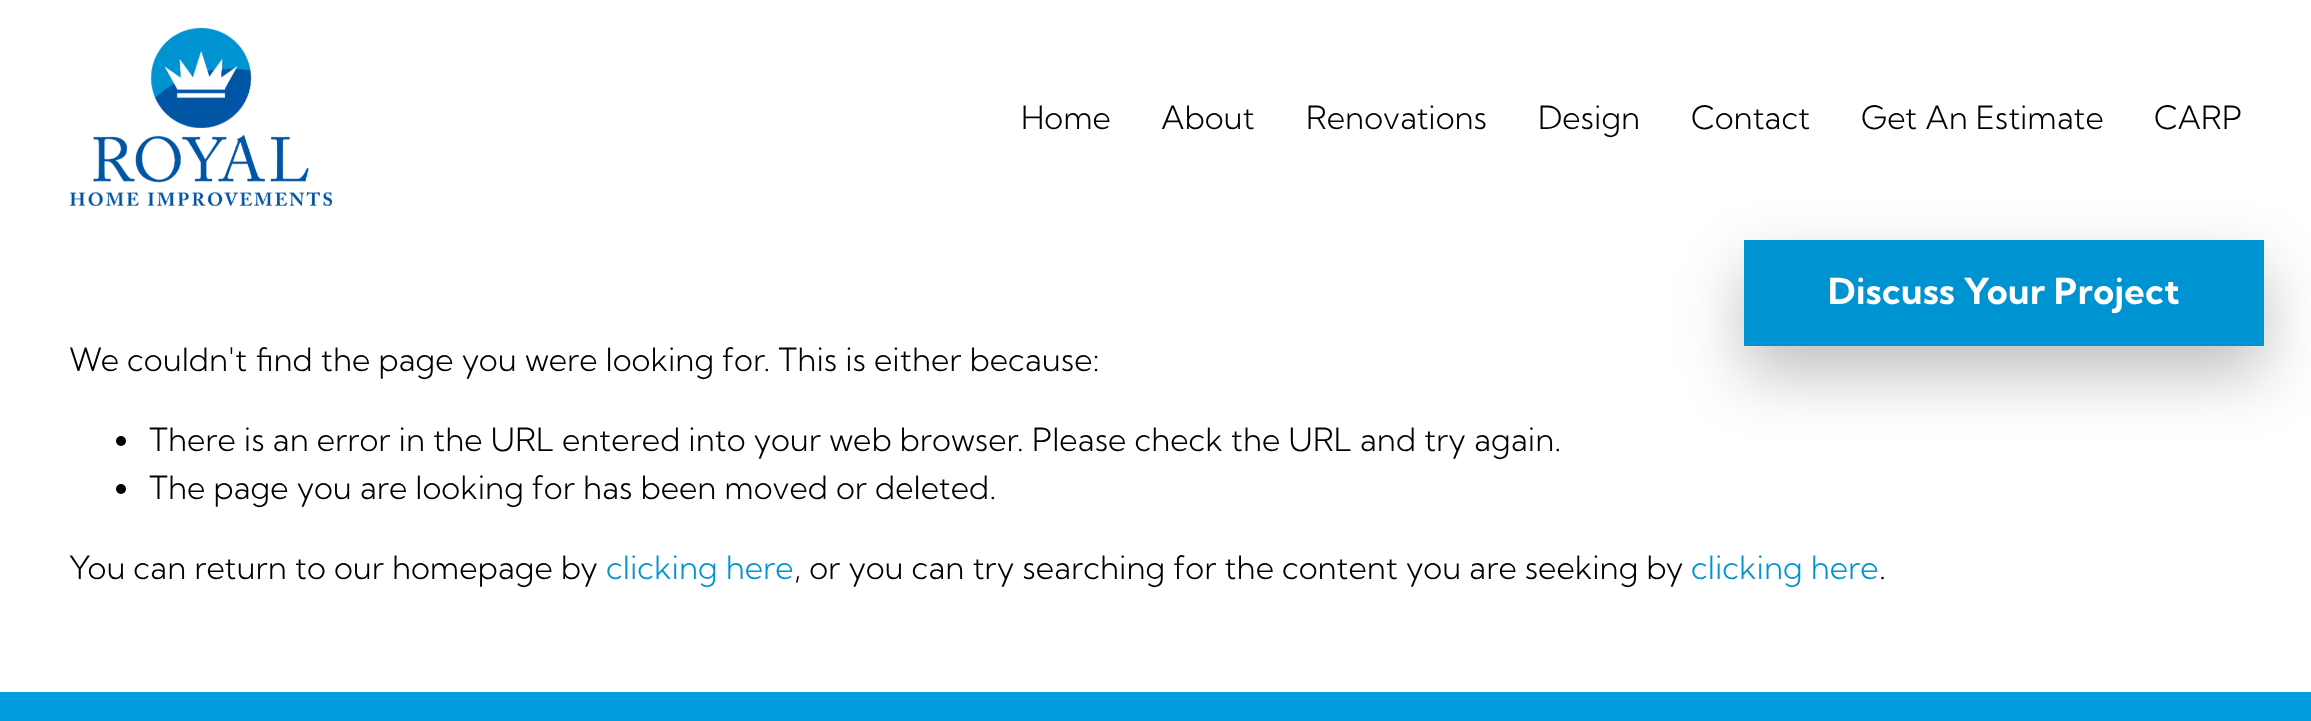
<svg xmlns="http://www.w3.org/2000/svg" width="2311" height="721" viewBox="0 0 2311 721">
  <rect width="100%" height="100%" fill="#fff"/>
  <image x="70" y="27" width="262" height="179" href="img/1.png"/>
  <circle cx="121" cy="441" r="5" fill="#000"/>
  <circle cx="121" cy="489" r="5" fill="#000"/>
  <path d="M0 692h2311v29H0z" fill="#009edf"/>
  <path d="M1744 268h520v106H1744z" fill="#00000040" filter="blur(32px)"/>
  <path d="M1744 240h520v106H1744z" fill="#0093d1"/>
  <g font-family="Kumbh Sans" font-size="32" font-weight="300" fill="#000">
    <text x="1021" y="129">Home</text>
    <text x="1161" y="129">About</text>
    <text x="1306" y="129">Renovations</text>
    <text x="1538" y="129">Design</text>
    <text x="1691" y="129">Contact</text>
    <text x="1861" y="129">Get An Estimate</text>
    <text x="2154" y="129">CARP</text>
    <text x="69" y="371">We couldn't find the page you were looking for. This is either because:</text>
    <text x="149" y="451">There is an error in the URL entered into your web browser. Please check the URL and try again.</text>
    <text x="149" y="499">The page you are looking for has been moved or deleted.</text>
    <text x="69" y="579">You can return to our homepage by</text>
  </g>
  <text x="606" y="579" font-family="Kumbh Sans" font-size="32" font-weight="300" fill="#0093d1">clicking here</text>
  <text x="794" y="579" font-family="Kumbh Sans" font-size="32" font-weight="300" fill="#000">, or you can try searching for the content you are seeking by</text>
  <text x="1691" y="579" font-family="Kumbh Sans" font-size="32" font-weight="300" fill="#0093d1">clicking here</text>
  <text x="1879" y="579" font-family="Kumbh Sans" font-size="32" font-weight="300" fill="#000">.</text>
  <text x="1828" y="304" font-family="Kumbh Sans" font-size="36" font-weight="bold" letter-spacing="0.4" fill="#fff">Discuss Your Project</text>
</svg>
